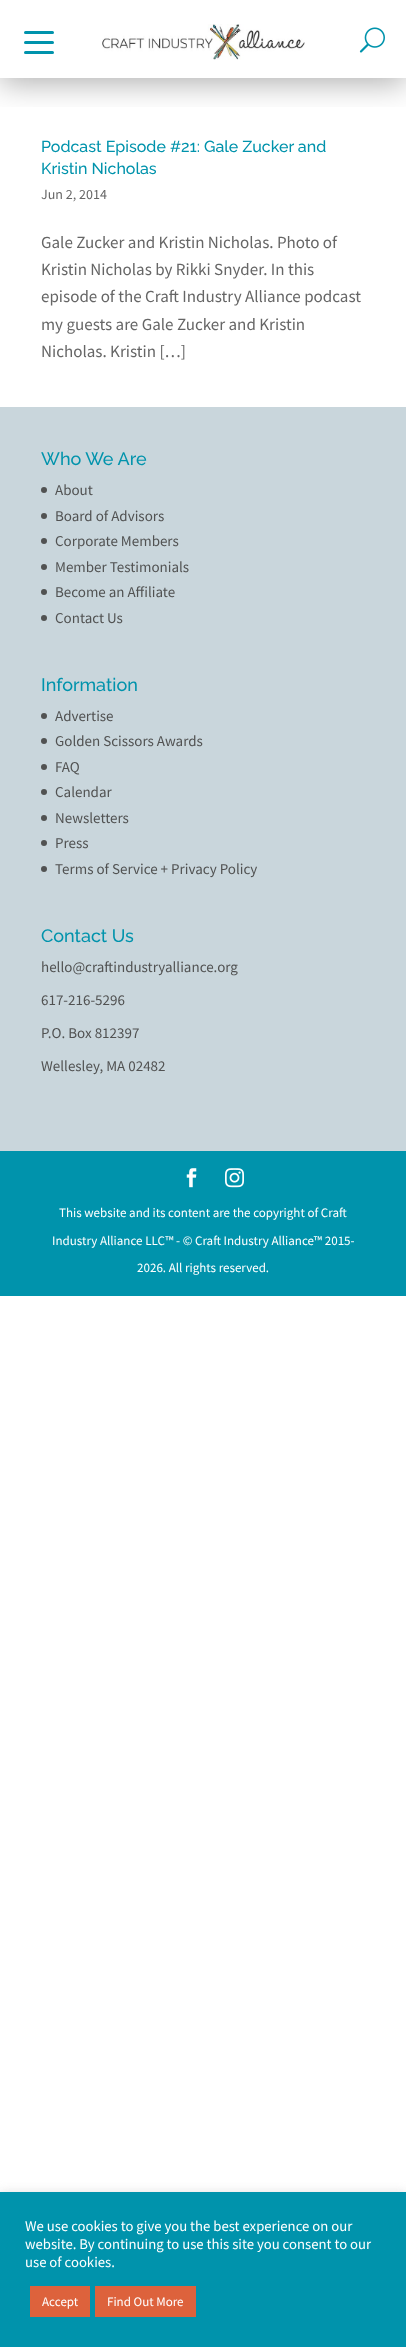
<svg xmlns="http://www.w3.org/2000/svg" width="406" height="2347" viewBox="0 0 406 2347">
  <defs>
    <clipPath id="clip1"><path d="M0 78h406v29H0z"/></clipPath>
  </defs>
  <rect width="100%" height="100%" fill="#fff"/>
  <g clip-path="url(#clip1)">
    <path d="M0 6h406v78H0z" fill="#0000004d" filter="blur(15px)"/>
  </g>
  <image x="102" y="24" width="203" height="36" href="img/1.png"/>
  <image x="359" y="27" width="26" height="26" href="img/2.png"/>
  <rect x="24" y="31" width="30" height="3" rx="1.5" fill="#0093ac"/>
  <rect x="24" y="41" width="30" height="3" rx="1.5" fill="#0093ac"/>
  <rect x="24" y="51" width="30" height="3" rx="1.5" fill="#0093ac"/>
  <path d="M0 407h406v744H0z" fill="#c9d6dc"/>
  <circle cx="44" cy="490" r="3" fill="#515252"/>
  <circle cx="44" cy="516" r="3" fill="#515252"/>
  <circle cx="44" cy="541" r="3" fill="#515252"/>
  <circle cx="44" cy="567" r="3" fill="#515252"/>
  <circle cx="44" cy="592" r="3" fill="#515252"/>
  <circle cx="44" cy="618" r="3" fill="#515252"/>
  <circle cx="44" cy="716" r="3" fill="#515252"/>
  <circle cx="44" cy="741" r="3" fill="#515252"/>
  <circle cx="44" cy="767" r="3" fill="#515252"/>
  <circle cx="44" cy="792" r="3" fill="#515252"/>
  <circle cx="44" cy="818" r="3" fill="#515252"/>
  <circle cx="44" cy="843" r="3" fill="#515252"/>
  <circle cx="44" cy="869" r="3" fill="#515252"/>
  <path d="M0 1151h406v145H0z" fill="#0093ac"/>
  <image x="186" y="1168" width="11" height="20" href="img/3.png"/>
  <image x="225" y="1168" width="19" height="20" href="img/4.png"/>
  <path d="M0 2191h406v155H0z" fill="#acabab4d" filter="blur(5px)"/>
  <path d="M0 2192h406v155H0z" fill="#0093ac"/>
  <path d="M30 2286h60v31H30z" fill="#dd623c"/>
  <path d="M95 2286h101v31H95z" fill="#dd623c"/>
  <g font-family="Raleway" font-size="16" font-weight="500" fill="#0093ac">
    <text x="41" y="152">Podcast Episode #21: Gale Zucker and</text>
    <text x="41" y="174">Kristin Nicholas</text>
  </g>
  <text x="41" y="199" font-family="Source Sans Pro" font-size="14" fill="#666">Jun 2, 2014</text>
  <g font-family="Source Sans Pro" font-size="17" fill="#666">
    <text x="41" y="248">Gale Zucker and Kristin Nicholas. Photo of</text>
    <text x="41" y="275">Kristin Nicholas by Rikki Snyder. In this</text>
    <text x="41" y="302">episode of the Craft Industry Alliance podcast</text>
    <text x="41" y="330">my guests are Gale Zucker and Kristin</text>
    <text x="41" y="357">Nicholas. Kristin […]</text>
  </g>
  <text x="41" y="465" font-family="Raleway" font-size="18" font-weight="500" fill="#0093ac">Who We Are</text>
  <g font-family="Source Sans Pro" font-size="15" fill="#515252">
    <text x="55" y="495">About</text>
    <text x="55" y="521">Board of Advisors</text>
    <text x="55" y="546">Corporate Members</text>
    <text x="55" y="572">Member Testimonials</text>
    <text x="55" y="597">Become an Affiliate</text>
    <text x="55" y="623">Contact Us</text>
  </g>
  <text x="41" y="691" font-family="Raleway" font-size="18" font-weight="500" fill="#0093ac">Information</text>
  <g font-family="Source Sans Pro" font-size="15" fill="#515252">
    <text x="55" y="721">Advertise</text>
    <text x="55" y="746">Golden Scissors Awards</text>
    <text x="55" y="772">FAQ</text>
    <text x="55" y="797">Calendar</text>
    <text x="55" y="823">Newsletters</text>
    <text x="55" y="848">Press</text>
    <text x="55" y="874">Terms of Service + Privacy Policy</text>
  </g>
  <text x="41" y="942" font-family="Raleway" font-size="18" font-weight="500" fill="#0093ac">Contact Us</text>
  <g font-family="Source Sans Pro" font-size="15" fill="#515252">
    <text x="41" y="972">hello@craftindustryalliance.org</text>
    <text x="41" y="1005">617-216-5296</text>
    <text x="41" y="1038">P.O. Box 812397</text>
    <text x="41" y="1071">Wellesley, MA 02482</text>
  </g>
  <g font-family="Source Sans Pro" font-size="13" fill="#fff">
    <text x="59" y="1217">This website and its content are the copyright of Craft</text>
    <text x="52" y="1245">Industry Alliance LLC™ - © Craft Industry Alliance™ 2015-</text>
    <text x="137" y="1272">2026. All rights reserved.</text>
  </g>
  <g font-family="Source Sans Pro" font-size="14.7" fill="#fff">
    <text x="25" y="2231">We use cookies to give you the best experience on our</text>
    <text x="25" y="2249">website. By continuing to use this site you consent to our</text>
    <text x="25" y="2267">use of cookies.</text>
  </g>
  <g font-family="Source Sans Pro" font-size="13" fill="#fff">
    <text x="42" y="2306">Accept</text>
    <text x="107" y="2306">Find Out More</text>
  </g>
</svg>
